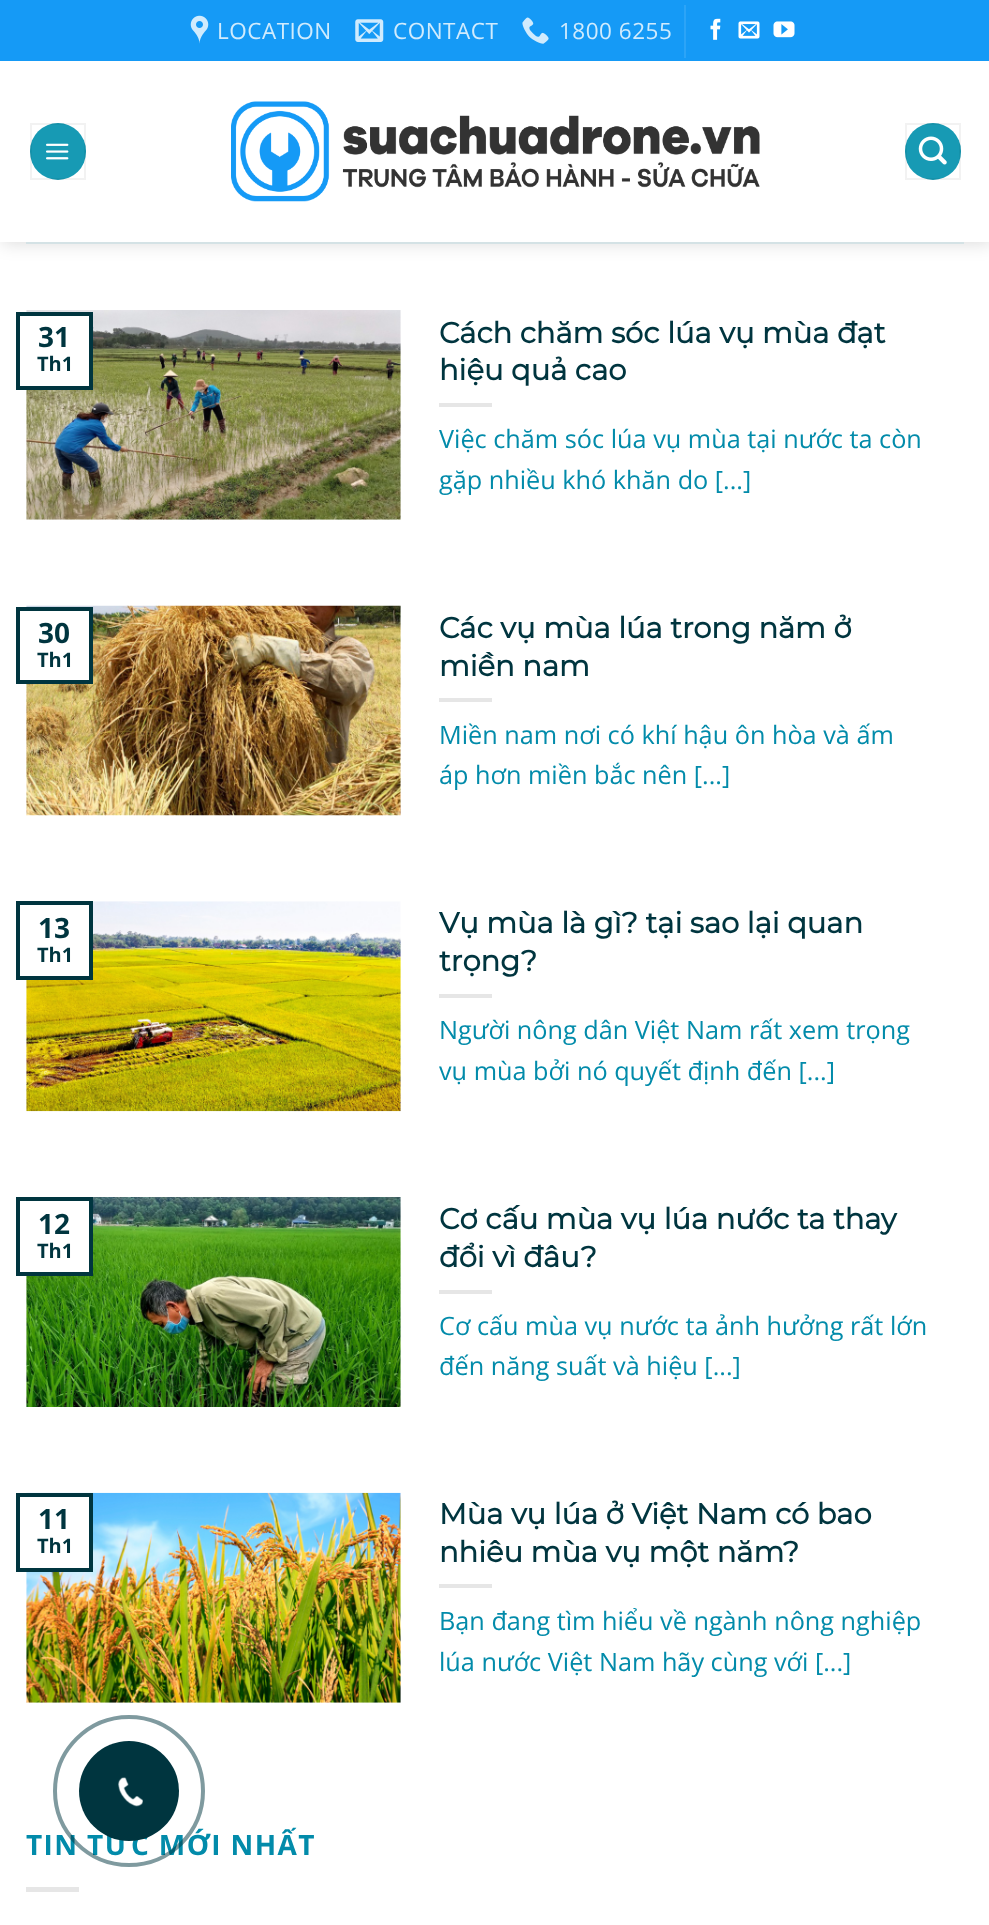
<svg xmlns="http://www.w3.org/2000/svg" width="989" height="1925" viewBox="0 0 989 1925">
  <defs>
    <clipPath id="clip1"><path d="M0 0H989V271H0ZM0 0H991V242H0Z" clip-rule="evenodd"/></clipPath>
  </defs>
  <rect width="100%" height="100%" fill="#fff"/>
  <g clip-path="url(#clip1)">
    <path d="M2 2h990v241H2z" fill="#00000026" filter="blur(9px)"/>
  </g>
  <path d="M0 241h989v1H0z" fill="#ffffffe6"/>
  <path d="M0 0h989v61H0z" fill="#159af6"/>
  <image x="190" y="15" width="19" height="29" href="img/1.png"/>
  <image x="355" y="19" width="29" height="23" href="img/2.png"/>
  <image x="522" y="17" width="27" height="27" href="img/3.png"/>
  <path d="M684 5h2v53H684z" fill="#2ca4f7"/>
  <image x="710" y="18" width="11" height="22" href="img/4.png"/>
  <image x="738" y="21" width="22" height="18" href="img/5.png"/>
  <image x="773" y="21" width="22" height="17" href="img/6.png"/>
  <rect x="30" y="123" width="56" height="57" rx="28" fill="#179ab4"/>
  <path d="M31 124h54v55H31z" fill="none" stroke="#0000000d" stroke-width="2"/>
  <image x="46" y="143" width="23" height="17" href="img/7.png"/>
  <image x="231" y="101" width="529" height="101" href="img/8.png"/>
  <rect x="905" y="123" width="56" height="57" rx="28" fill="#179ab4"/>
  <path d="M906 124h54v55H906z" fill="none" stroke="#0000000d" stroke-width="2"/>
  <image x="918" y="136" width="29" height="29" href="img/9.png"/>
  <path d="M26 242h938v2H26z" fill="#d4e2e5"/>
  <image x="26" y="310" width="375" height="210" href="img/10.png"/>
  <path d="M439 403h53v4H439z" fill="#e6e6e6"/>
  <path d="M26 316h63v70H26z" fill="#fff"/>
  <path d="M18 314h73v74H18z" fill="none" stroke="#00353f" stroke-width="4"/>
  <image x="26" y="605" width="375" height="211" href="img/11.png"/>
  <path d="M439 698h53v4H439z" fill="#e6e6e6"/>
  <path d="M26 611h63v69H26z" fill="#fff"/>
  <path d="M18 609h73v73H18z" fill="none" stroke="#00353f" stroke-width="4"/>
  <image x="26" y="901" width="375" height="211" href="img/12.png"/>
  <path d="M439 994h53v4H439z" fill="#e6e6e6"/>
  <path d="M26 905h63v71H26z" fill="#fff"/>
  <path d="M18 903h73v75H18z" fill="none" stroke="#00353f" stroke-width="4"/>
  <image x="26" y="1197" width="375" height="210" href="img/13.png"/>
  <path d="M439 1290h53v4H439z" fill="#e6e6e6"/>
  <path d="M26 1201h63v71H26z" fill="#fff"/>
  <path d="M18 1199h73v75H18z" fill="none" stroke="#00353f" stroke-width="4"/>
  <image x="26" y="1492" width="375" height="211" href="img/14.png"/>
  <path d="M439 1584h53v4H439z" fill="#e6e6e6"/>
  <path d="M26 1497h63v71H26z" fill="#fff"/>
  <path d="M18 1495h73v75H18z" fill="none" stroke="#00353f" stroke-width="4"/>
  <path d="M26 1887h53v5H26z" fill="#e6e6e6"/>
  <g font-family="Open Sans" font-size="22.5" letter-spacing="0.5" fill="#d0ebfd">
    <text x="217" y="39">LOCATION</text>
    <text x="393" y="39">CONTACT</text>
    <text x="559" y="39">1800 6255</text>
  </g>
  <g font-family="Montserrat" font-size="29" font-weight="bold" fill="#00353f">
    <text x="439" y="343">Cách chăm sóc lúa vụ mùa đạt</text>
    <text x="439" y="380">hiệu quả cao</text>
  </g>
  <g font-family="Open Sans" font-size="25.25" fill="#028baa">
    <text x="439" y="448">Việc chăm sóc lúa vụ mùa tại nước ta còn</text>
    <text x="439" y="489">gặp nhiều khó khăn do [...]</text>
  </g>
  <text x="38" y="347" font-family="Open Sans" font-size="28" font-weight="bold" fill="#00353f">31</text>
  <text x="37" y="371" font-family="Open Sans" font-size="20" font-weight="bold" fill="#00353f">Th1</text>
  <g font-family="Montserrat" font-size="29" font-weight="bold" fill="#00353f">
    <text x="439" y="638">Các vụ mùa lúa trong năm ở</text>
    <text x="439" y="676">miền nam</text>
  </g>
  <g font-family="Open Sans" font-size="25.25" fill="#028baa">
    <text x="439" y="744">Miền nam nơi có khí hậu ôn hòa và ấm</text>
    <text x="439" y="784">áp hơn miền bắc nên [...]</text>
  </g>
  <text x="38" y="643" font-family="Open Sans" font-size="28" font-weight="bold" fill="#00353f">30</text>
  <text x="37" y="667" font-family="Open Sans" font-size="20" font-weight="bold" fill="#00353f">Th1</text>
  <g font-family="Montserrat" font-size="29" font-weight="bold" fill="#00353f">
    <text x="439" y="933">Vụ mùa là gì? tại sao lại quan</text>
    <text x="439" y="971">trọng?</text>
  </g>
  <g font-family="Open Sans" font-size="25.25" fill="#028baa">
    <text x="439" y="1039">Người nông dân Việt Nam rất xem trọng</text>
    <text x="439" y="1080">vụ mùa bởi nó quyết định đến [...]</text>
  </g>
  <text x="38" y="938" font-family="Open Sans" font-size="28" font-weight="bold" fill="#00353f">13</text>
  <text x="37" y="962" font-family="Open Sans" font-size="20" font-weight="bold" fill="#00353f">Th1</text>
  <g font-family="Montserrat" font-size="29" font-weight="bold" fill="#00353f">
    <text x="439" y="1229">Cơ cấu mùa vụ lúa nước ta thay</text>
    <text x="439" y="1267">đổi vì đâu?</text>
  </g>
  <g font-family="Open Sans" font-size="25.25" fill="#028baa">
    <text x="439" y="1335">Cơ cấu mùa vụ nước ta ảnh hưởng rất lớn</text>
    <text x="439" y="1375">đến năng suất và hiệu [...]</text>
  </g>
  <text x="38" y="1234" font-family="Open Sans" font-size="28" font-weight="bold" fill="#00353f">12</text>
  <text x="37" y="1258" font-family="Open Sans" font-size="20" font-weight="bold" fill="#00353f">Th1</text>
  <g font-family="Montserrat" font-size="29" font-weight="bold" fill="#00353f">
    <text x="439" y="1524">Mùa vụ lúa ở Việt Nam có bao</text>
    <text x="439" y="1562">nhiêu mùa vụ một năm?</text>
  </g>
  <g font-family="Open Sans" font-size="25.25" fill="#028baa">
    <text x="439" y="1630">Bạn đang tìm hiểu về ngành nông nghiệp</text>
    <text x="439" y="1671">lúa nước Việt Nam hãy cùng với [...]</text>
  </g>
  <text x="38" y="1529" font-family="Open Sans" font-size="28" font-weight="bold" fill="#00353f">11</text>
  <text x="37" y="1553" font-family="Open Sans" font-size="20" font-weight="bold" fill="#00353f">Th1</text>
  <text x="26" y="1855" font-family="Open Sans" font-size="28" font-weight="bold" letter-spacing="1.4" fill="#028baa">TIN TỨC MỚI NHẤT</text>
  <circle cx="129" cy="1791" r="74" fill="none" stroke="#00353f80" stroke-width="4"/>
  <circle cx="129" cy="1791" r="50" fill="#00353f"/>
  <image x="118" y="1777" width="25" height="30" href="img/15.png"/>
</svg>
